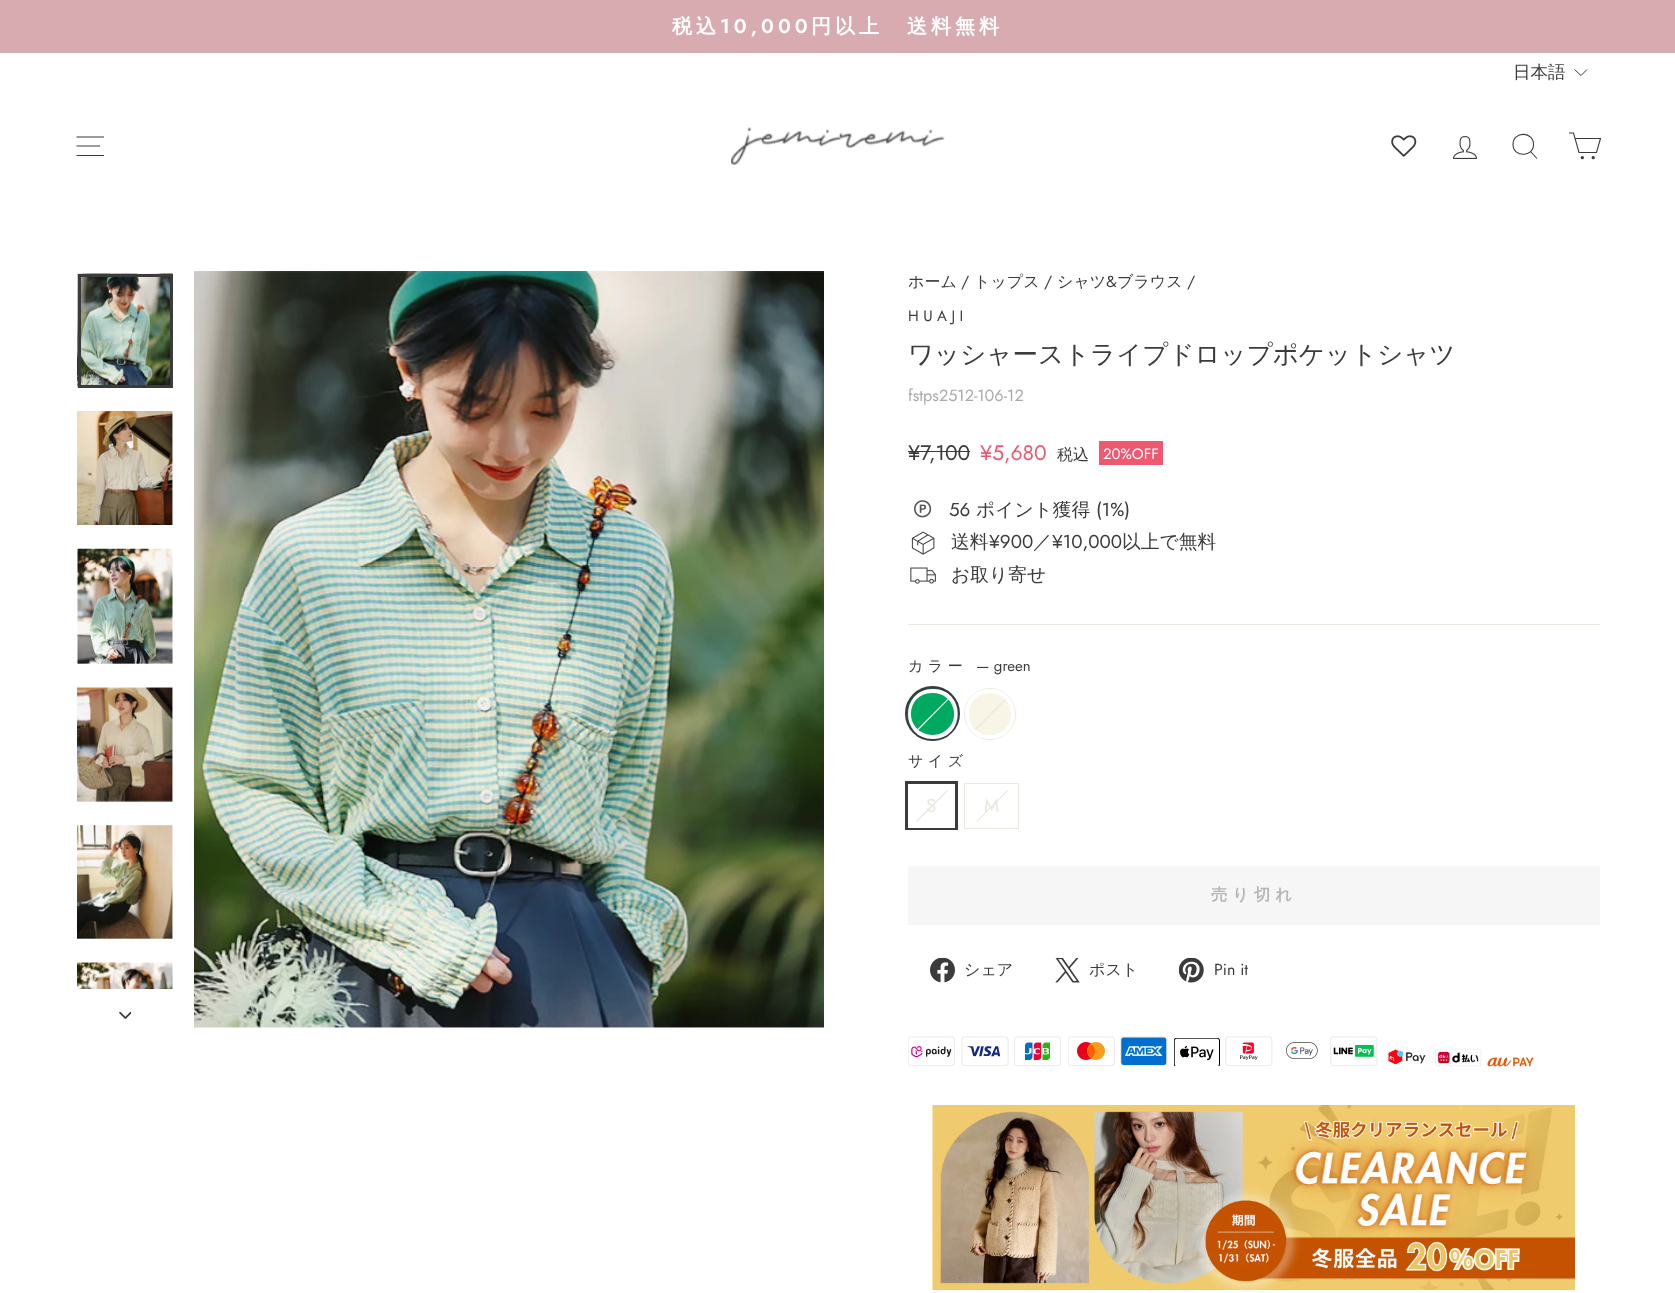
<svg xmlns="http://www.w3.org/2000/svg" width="1675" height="1293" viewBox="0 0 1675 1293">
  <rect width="100%" height="100%" fill="#fff"/>
  <path d="M0 0h1675v53H0z" fill="#d8abb0"/>
  <path d="M1574.5 69.5L1581 75.5L1587 69.5" fill="none" stroke="#3b3b3b"/>
  <path d="M0 91h1675v112H0z" fill="#00000033" filter="blur(0.5px)"/>
  <path d="M0 91h1675v112H0z" fill="#fff"/>
  <path d="M76.5 137H104M76.5 146H100M76.5 155.5H104" fill="none" stroke="#3b3b3b" stroke-width="1.1"/>
  <image x="731" y="127" width="214" height="38" href="img/1.png"/>
  <image x="1391" y="135" width="26" height="22" href="img/2.png"/>
  <image x="1453" y="136" width="24" height="23" href="img/3.png"/>
  <path d="M1533.5 144.5C1533.5 157.5 1513 157.5 1513 144.5C1513 131 1533.5 131 1533.5 144.5ZM1537 158.5L1530.5 151.5" fill="none" stroke="#3b3b3b" stroke-width="1.1"/>
  <path d="M1575 138.5H1600.5L1596.5 152.5H1579L1573.5 133H1569" fill="none" stroke="#3b3b3b" stroke-width="1.1"/>
  <circle cx="1582.3" cy="157.7" r="1.1" fill="#3b3b3b" stroke="#3b3b3b" stroke-width="1.1"/>
  <circle cx="1593.2" cy="157.7" r="1.1" fill="#3b3b3b" stroke="#3b3b3b" stroke-width="1.1"/>
  <image x="77" y="273" width="96" height="115" href="img/4.png"/>
  <path d="M79.5 275.5h92v111H79.5z" fill="none" stroke="#3b3b3b" stroke-width="3"/>
  <image x="77" y="411" width="96" height="114" href="img/5.png"/>
  <image x="77" y="548" width="96" height="116" href="img/6.png"/>
  <image x="77" y="687" width="96" height="115" href="img/7.png"/>
  <image x="77" y="825" width="96" height="114" href="img/8.png"/>
  <image x="77" y="962" width="96" height="27" href="img/9.png"/>
  <image x="119" y="1011" width="13" height="8" href="img/10.png"/>
  <image x="194" y="271" width="630" height="757" href="img/11.png"/>
  <path d="M908 451h62v1H908z" fill="#3b3b3b"/>
  <path d="M1099 441h64v24H1099z" fill="#ef596f"/>
  <image x="914" y="500" width="17" height="18" href="img/12.png"/>
  <image x="911" y="531" width="24" height="24" href="img/13.png"/>
  <image x="910" y="567" width="26" height="17" href="img/14.png"/>
  <path d="M908 624h692v1H908z" fill="#e8e8e1"/>
  <circle cx="932.5" cy="713.5" r="26" fill="none" stroke="#3b3b3b" stroke-width="3"/>
  <image x="907" y="688" width="51" height="51" href="img/15.png"/>
  <path d="M950.5 696L951 697L916 732.5L915 731.5Z" fill="#e8e8e1"/>
  <path d="M933 689C900 689 900 739 933 739C966 739 966 689 933 689ZM932 693C905 693 903 733 932 735C936 735 941 734 945 731C962 720 954 693 933 693Z" fill="#fff" fill-rule="evenodd"/>
  <circle cx="990" cy="714" r="25.5" fill="none" stroke="#e8e8e1"/>
  <image x="965" y="689" width="50" height="50" href="img/16.png"/>
  <path d="M1007.5 696.5L1008.5 697L973.5 732.5L972.5 731.5Z" fill="#e8e8e1"/>
  <path d="M990 689C957 689 957 739 990 739C1023 739 1023 689 990 689ZM990 693C962 693 962 735 990 735C1018 735 1018 693 990 693Z" fill="#fff" fill-rule="evenodd"/>
  <path d="M906.5 782.5h50v46H906.5z" fill="none" stroke="#3b3b3b" stroke-width="3"/>
  <path d="M908 827h47v1H908z" fill="#fff"/>
  <path d="M947 790L948 791L917 822L916 821Z" fill="#e8e8e1"/>
  <path d="M964.5 783.5h54v45H964.5z" fill="none" stroke="#e8e8e1"/>
  <path d="M1007.5 790L1008 791L977 822L976.5 821Z" fill="#e8e8e1"/>
  <path d="M908 866h692v59H908z" fill="#f6f6f6"/>
  <image x="930" y="958" width="25" height="25" href="img/17.png"/>
  <image x="1055" y="958" width="25" height="25" href="img/18.png"/>
  <image x="1179" y="958" width="25" height="25" href="img/19.png"/>
  <image x="908" y="1036" width="47" height="30" href="img/20.png"/>
  <image x="961" y="1036" width="48" height="30" href="img/21.png"/>
  <image x="1014" y="1036" width="47" height="30" href="img/22.png"/>
  <image x="1068" y="1036" width="47" height="30" href="img/23.png"/>
  <image x="1120" y="1036" width="48" height="30" href="img/24.png"/>
  <image x="1174" y="1038" width="46" height="28" href="img/25.png"/>
  <image x="1225" y="1036" width="48" height="30" href="img/26.png"/>
  <image x="1286" y="1042" width="32" height="17" href="img/27.png"/>
  <image x="1330" y="1036" width="48" height="30" href="img/28.png"/>
  <image x="1388" y="1049" width="38" height="16" href="img/29.png"/>
  <image x="1435" y="1048" width="47" height="19" href="img/30.png"/>
  <image x="1487" y="1057" width="47" height="10" href="img/31.png"/>
  <image x="932" y="1105" width="643" height="185" href="img/32.png"/>
  <text x="672" y="33" font-family="WenQuanYi Zen Hei" font-size="20" font-weight="bold" letter-spacing="4" fill="#fff">税込</text>
  <text x="720" y="33" font-family="Jost" font-size="20" font-weight="600" letter-spacing="4" fill="#fff">10,000</text>
  <text x="811" y="33" font-family="WenQuanYi Zen Hei" font-size="20" font-weight="bold" letter-spacing="4" fill="#fff">円以上　送料無料</text>
  <text x="1513" y="78" font-family="WenQuanYi Zen Hei" font-size="17.5" font-weight="500" fill="#3b3b3b">日本語</text>
  <text x="908" y="287" font-family="WenQuanYi Zen Hei" font-size="16" font-weight="500" fill="#3b3b3b">ホーム</text>
  <text x="961" y="287" font-family="Jost" font-size="16" fill="#3b3b3b">/</text>
  <text x="974" y="287" font-family="WenQuanYi Zen Hei" font-size="16" font-weight="500" fill="#3b3b3b">トップス</text>
  <text x="1044" y="287" font-family="Jost" font-size="16" fill="#3b3b3b">/</text>
  <text x="1057" y="287" font-family="WenQuanYi Zen Hei" font-size="16" font-weight="500" fill="#3b3b3b">シャツ</text>
  <text x="1106" y="287" font-family="Jost" font-size="16" fill="#3b3b3b">&amp;</text>
  <text x="1117" y="287" font-family="WenQuanYi Zen Hei" font-size="16" font-weight="500" fill="#3b3b3b">ブラウス</text>
  <text x="1187" y="287" font-family="Jost" font-size="16" fill="#3b3b3b">/</text>
  <text x="908" y="321" font-family="Jost" font-size="15" letter-spacing="4.5" fill="#3b3b3b">HUAJI</text>
  <text x="908" y="363" font-family="WenQuanYi Zen Hei" font-size="25.5" font-weight="500" fill="#3b3b3b">ワッシャーストライプドロップポケットシャツ</text>
  <text x="908" y="401" font-family="Jost" font-size="16.25" fill="#aaa">fstps2512-106-12</text>
  <text x="908" y="460" font-family="Jost" font-size="21" fill="#3b3b3b">¥7,100</text>
  <text x="980" y="460" font-family="Jost" font-size="21" fill="#ef596f">¥5,680</text>
  <text x="1057" y="460" font-family="WenQuanYi Zen Hei" font-size="16" font-weight="500" fill="#3b3b3b">税込</text>
  <text x="1103" y="459" font-family="Jost" font-size="15" fill="#fff">20%OFF</text>
  <text x="949" y="516" font-family="Jost" font-size="18.75" fill="#3b3b3b">56</text>
  <text x="976" y="516" font-family="WenQuanYi Zen Hei" font-size="18.75" font-weight="500" fill="#3b3b3b">ポイント獲得</text>
  <text x="1096" y="516" font-family="Jost" font-size="18.75" fill="#3b3b3b">(1%)</text>
  <text x="951" y="548" font-family="WenQuanYi Zen Hei" font-size="18.75" font-weight="500" fill="#3b3b3b">送料</text>
  <text x="989" y="548" font-family="Jost" font-size="18.75" fill="#3b3b3b">¥900</text>
  <text x="1033" y="548" font-family="WenQuanYi Zen Hei" font-size="18.75" font-weight="500" fill="#3b3b3b">／</text>
  <text x="1052" y="548" font-family="Jost" font-size="18.75" fill="#3b3b3b">¥10,000</text>
  <g font-family="WenQuanYi Zen Hei" font-size="18.75" font-weight="500" fill="#3b3b3b">
    <text x="1122" y="548">以上で無料</text>
    <text x="951" y="581">お取り寄せ</text>
  </g>
  <text x="908" y="671" font-family="WenQuanYi Zen Hei" font-size="15" font-weight="500" letter-spacing="4.5" fill="#3b3b3b">カラー</text>
  <text x="976" y="671" font-family="Jost" font-size="15" fill="#3b3b3b">— green</text>
  <text x="908" y="766" font-family="WenQuanYi Zen Hei" font-size="15" font-weight="500" letter-spacing="4.5" fill="#3b3b3b">サイズ</text>
  <g font-family="Jost" font-size="18.75" fill="#e8e8e1">
    <text x="926" y="812">S</text>
    <text x="984" y="812">M</text>
  </g>
  <text x="1211" y="900" font-family="WenQuanYi Zen Hei" font-size="16.25" font-weight="bold" letter-spacing="5" fill="#b6b6b6">売り切れ</text>
  <g font-family="WenQuanYi Zen Hei" font-size="16" font-weight="500" fill="#3b3b3b">
    <text x="964" y="975">シェア</text>
    <text x="1089" y="975">ポスト</text>
  </g>
  <text x="1214" y="975" font-family="Jost" font-size="16" fill="#3b3b3b">Pin it</text>
</svg>
